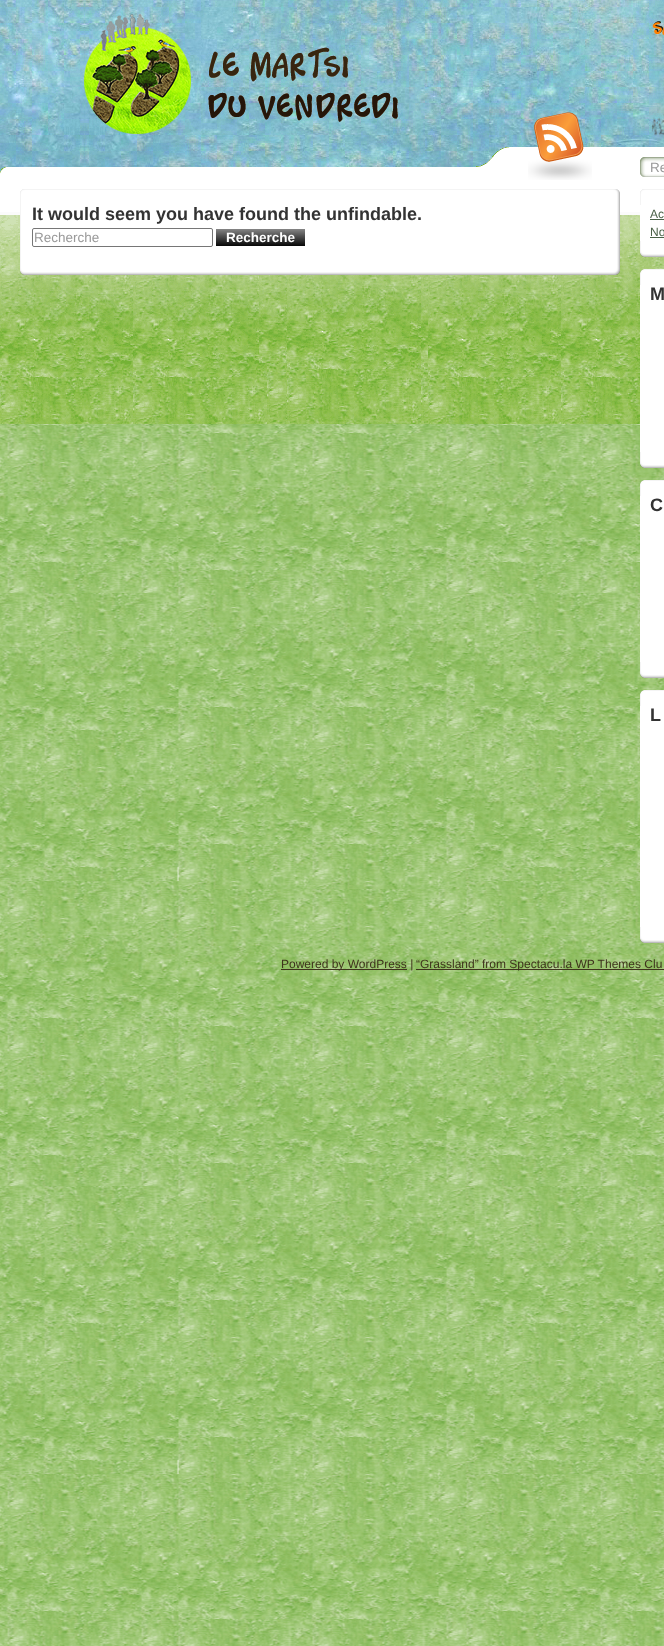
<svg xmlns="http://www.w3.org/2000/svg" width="664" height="1646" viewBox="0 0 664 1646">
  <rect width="100%" height="100%" fill="#fff"/>
  <image x="0" y="424" width="664" height="1222" href="img/1.png"/>
  <image x="0" y="0" width="664" height="171" href="img/2.png"/>
  <image x="0" y="147" width="664" height="277" href="img/3.png"/>
  <image x="528" y="112" width="64" height="68" href="img/4.png"/>
  <image x="640" y="157" width="24" height="20" href="img/5.png"/>
  <image x="20" y="189" width="600" height="16" href="img/6.png"/>
  <image x="20" y="205" width="600" height="54" href="img/7.png"/>
  <rect x="32.5" y="228.5" width="180" height="18" rx="1.5" fill="none" stroke="#767676"/>
  <image x="216" y="229" width="89" height="17" href="img/8.png"/>
  <image x="20" y="259" width="600" height="16" href="img/9.png"/>
  <image x="640" y="189" width="24" height="16" href="img/10.png"/>
  <path d="M640 212h24v29H640z" fill="#fff"/>
  <path d="M650 219h14v1H650z" fill="#4a6147"/>
  <path d="M650 237h14v1H650z" fill="#4a6147"/>
  <image x="640" y="241" width="24" height="16" href="img/11.png"/>
  <image x="640" y="269" width="24" height="16" href="img/12.png"/>
  <path d="M640 285h24v167H640z" fill="#fff"/>
  <image x="640" y="452" width="24" height="16" href="img/13.png"/>
  <image x="640" y="480" width="24" height="16" href="img/14.png"/>
  <path d="M640 496h24v166H640z" fill="#fff"/>
  <image x="640" y="662" width="24" height="16" href="img/15.png"/>
  <image x="640" y="690" width="24" height="16" href="img/16.png"/>
  <path d="M640 706h24v221H640z" fill="#fff"/>
  <image x="640" y="927" width="24" height="16" href="img/17.png"/>
  <path d="M281 969h126v1H281z" fill="#3e331c"/>
  <path d="M416 969h248v1H416z" fill="#3e331c"/>
  <text x="650" y="172" font-family="Liberation Sans" font-size="13.5" fill="#999">Re</text>
  <text x="32" y="220" font-family="Liberation Sans" font-size="18" font-weight="bold" fill="#333">It would seem you have found the unfindable.</text>
  <text x="34" y="242" font-family="Liberation Sans" font-size="13.5" fill="#999">Recherche</text>
  <text x="226" y="242" font-family="Liberation Sans" font-size="13.5" font-weight="bold" fill="#fff">Recherche</text>
  <g font-family="Liberation Sans" font-size="12" fill="#4a6147">
    <text x="650" y="218">Ac</text>
    <text x="650" y="236">No</text>
  </g>
  <g font-family="Liberation Sans" font-size="18" font-weight="bold" fill="#333">
    <text x="650" y="300">M</text>
    <text x="650" y="511">C</text>
    <text x="650" y="721">L</text>
  </g>
  <g font-family="Liberation Sans" font-size="12" fill="#3e331c">
    <text x="281" y="968">Powered by WordPress |</text>
    <text x="416" y="968">“Grassland” from Spectacu.la WP Themes Clu</text>
  </g>
</svg>
